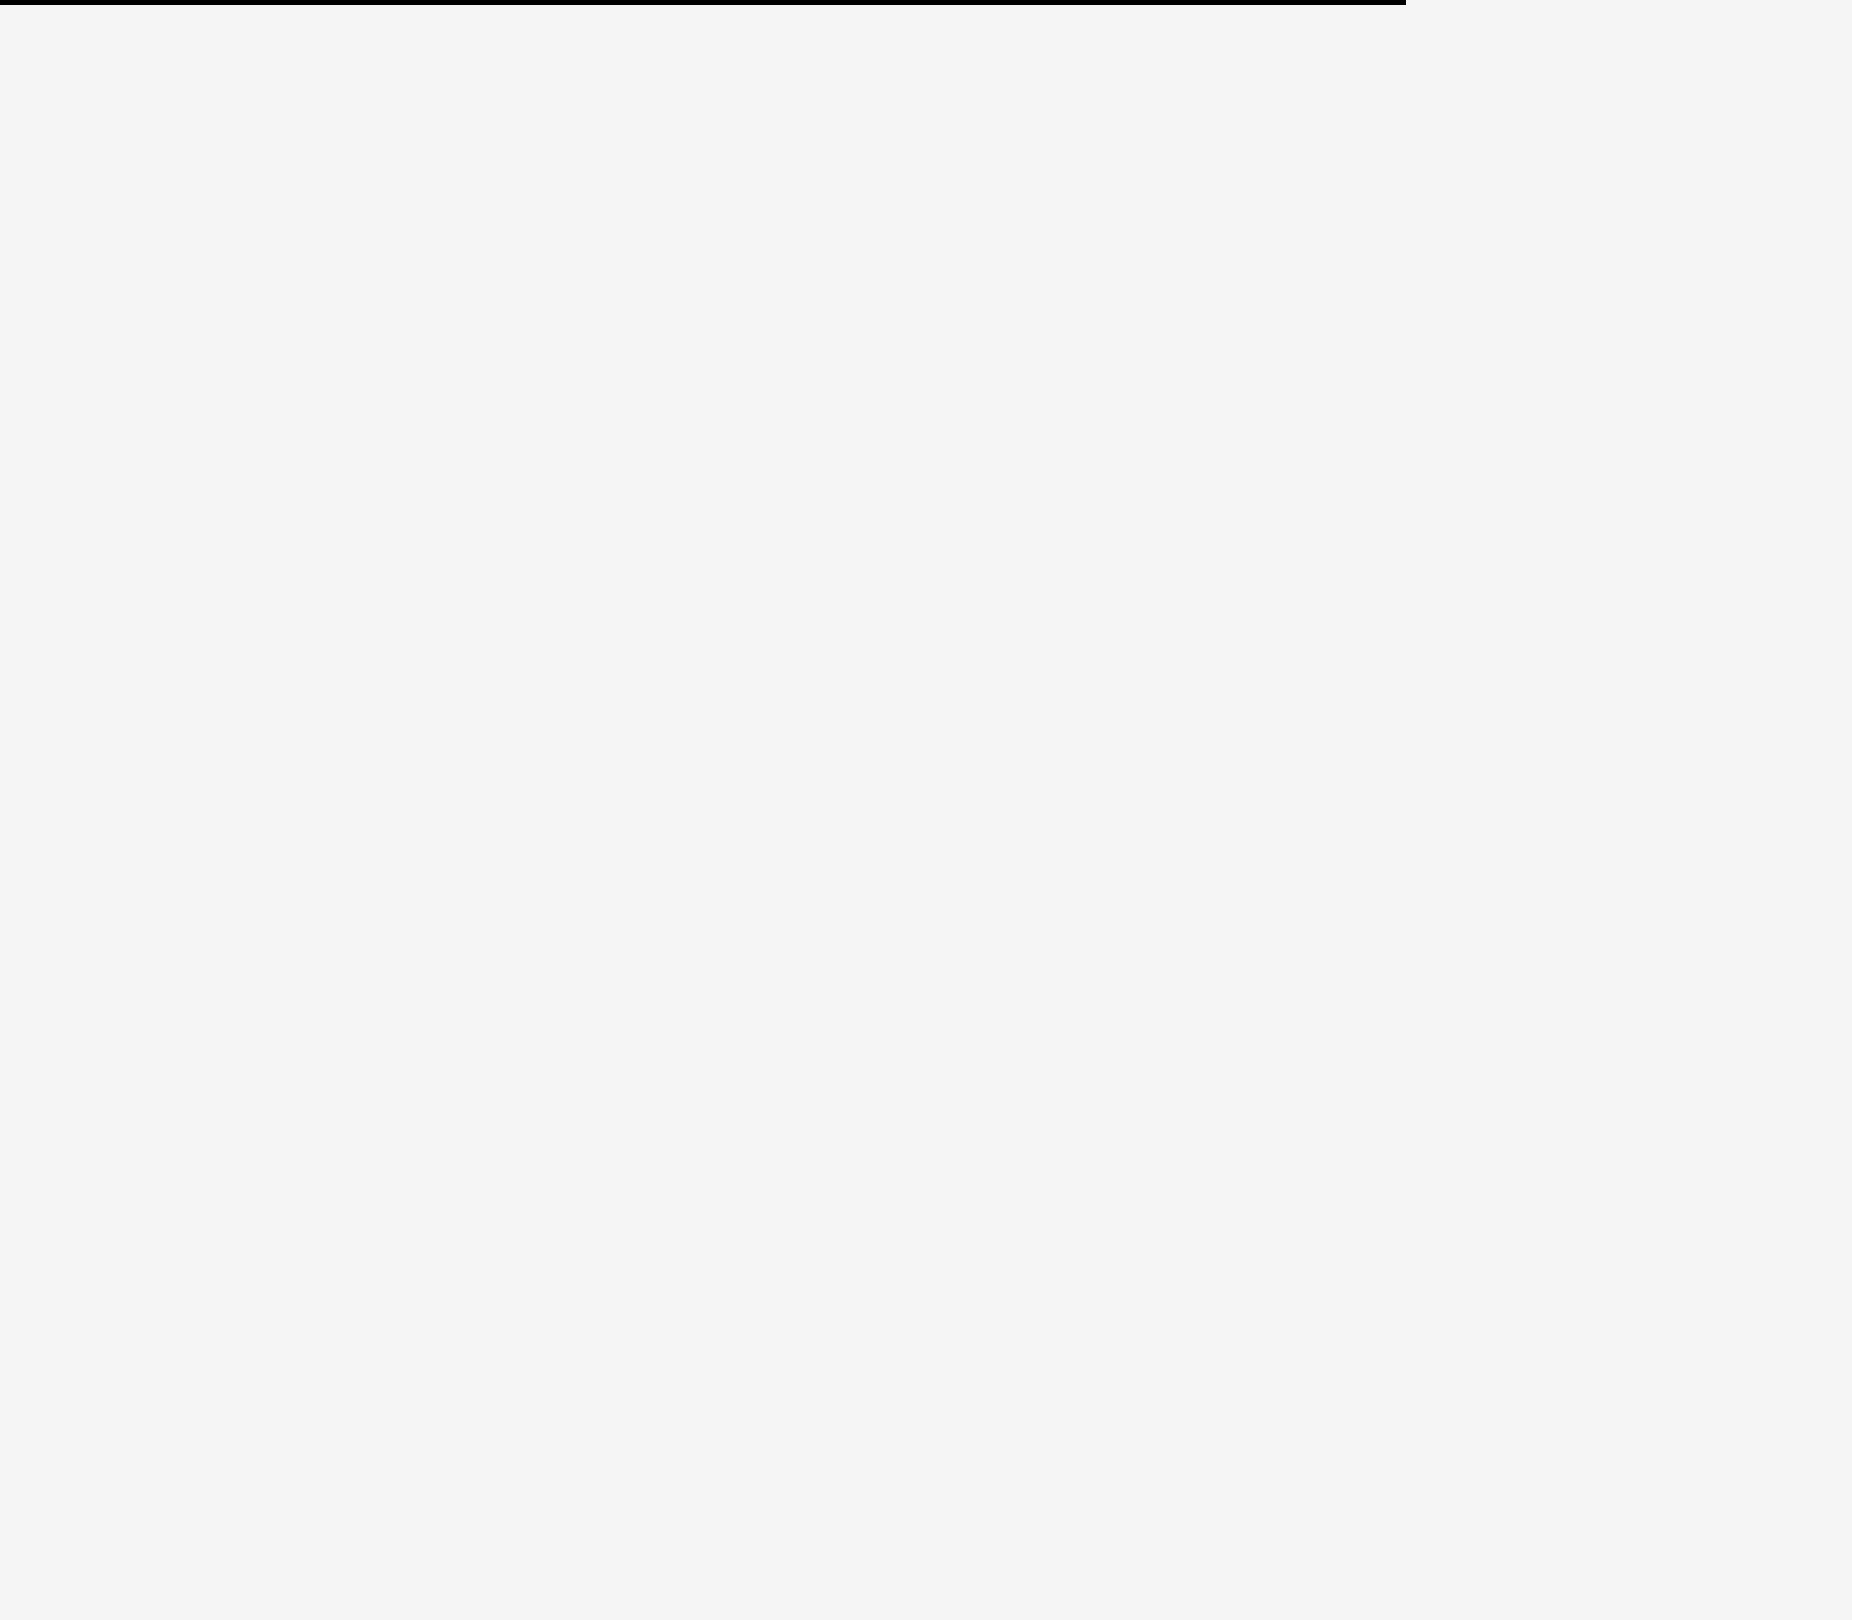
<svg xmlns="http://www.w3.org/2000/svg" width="1852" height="1620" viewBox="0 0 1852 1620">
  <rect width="100%" height="100%" fill="#f5f5f5"/>
  <path d="M0 0h1406v5H0z" fill="#000"/>
</svg>
